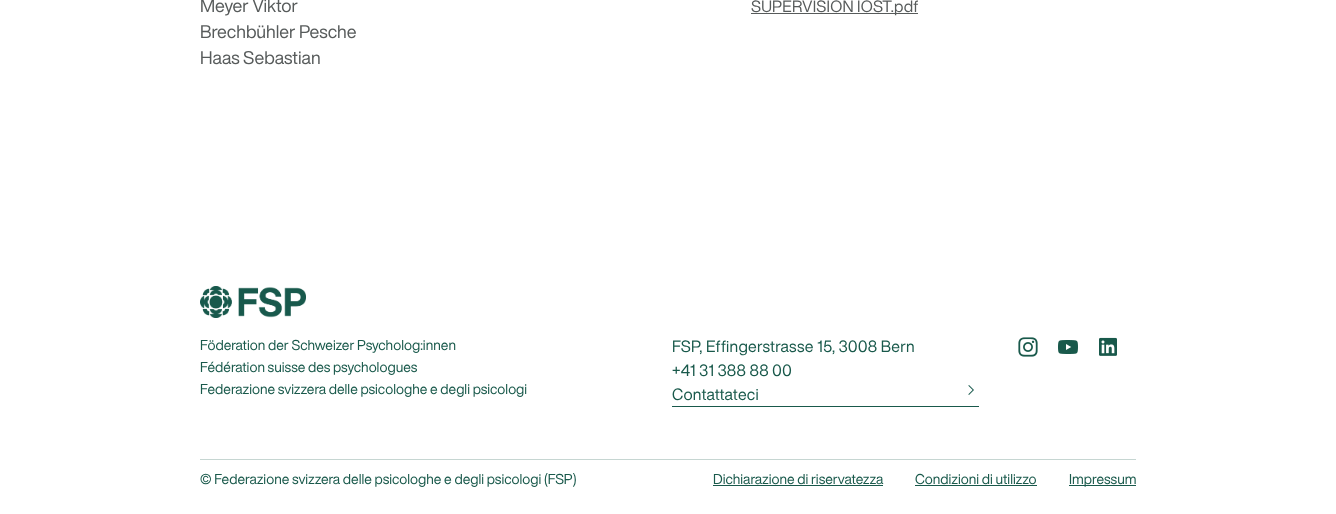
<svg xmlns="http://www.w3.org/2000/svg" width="1336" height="514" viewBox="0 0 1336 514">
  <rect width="100%" height="100%" fill="#fff"/>
  <path d="M751 13h167v1H751z" fill="#575b5b"/>
  <image x="200" y="286" width="106" height="32" href="img/1.png"/>
  <path d="M672 406h307v1H672z" fill="#19594b"/>
  <image x="968" y="385" width="6" height="10" href="img/2.png"/>
  <image x="1018" y="337" width="20" height="20" href="img/3.png"/>
  <image x="1058" y="340" width="20" height="14" href="img/4.png"/>
  <image x="1099" y="337" width="18" height="19" href="img/5.png"/>
  <path d="M200 459h936v1H200z" fill="#c6d6d2"/>
  <path d="M713 485h170v1H713z" fill="#19594b"/>
  <path d="M915 485h122v1H915z" fill="#19594b"/>
  <path d="M1069 485h67v1H1069z" fill="#19594b"/>
  <g font-family="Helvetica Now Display" font-size="18" fill="#575b5b">
    <text x="200" y="12">Meyer Viktor</text>
    <text x="200" y="38">Brechbühler Pesche</text>
    <text x="200" y="64">Haas Sebastian</text>
  </g>
  <text x="751" y="12" font-family="Helvetica Now Display" font-size="16" letter-spacing="0.25" fill="#575b5b">SUPERVISION IÖST.pdf</text>
  <g font-family="Helvetica Now Display" font-size="14" fill="#19594b">
    <text x="200" y="350">Föderation der Schweizer Psycholog:innen</text>
    <text x="200" y="372">Fédération suisse des psychologues</text>
    <text x="200" y="394">Federazione svizzera delle psicologhe e degli psicologi</text>
  </g>
  <g font-family="Helvetica Now Display" font-size="16" letter-spacing="0.25" fill="#19594b">
    <text x="672" y="352">FSP, Effingerstrasse 15, 3008 Bern</text>
    <text x="672" y="376">+41 31 388 88 00</text>
    <text x="672" y="400">Contattateci</text>
  </g>
  <g font-family="Helvetica Now Display" font-size="14" fill="#19594b">
    <text x="200" y="484">© Federazione svizzera delle psicologhe e degli psicologi (FSP)</text>
    <text x="713" y="484">Dichiarazione di riservatezza</text>
    <text x="915" y="484">Condizioni di utilizzo</text>
    <text x="1069" y="484">Impressum</text>
  </g>
</svg>
